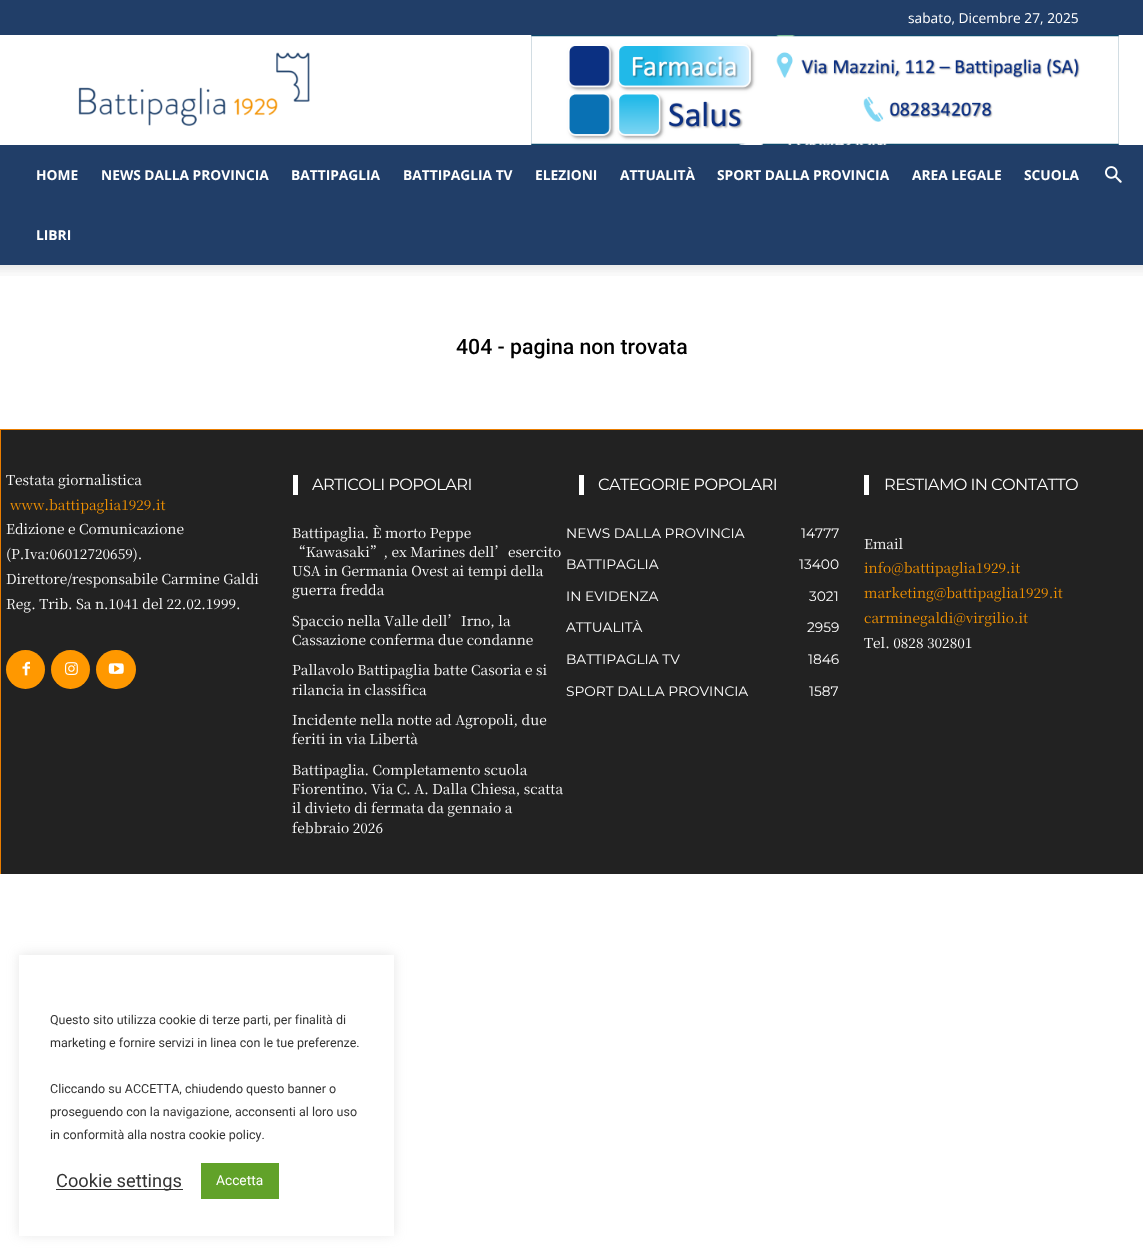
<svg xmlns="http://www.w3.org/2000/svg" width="1143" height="1255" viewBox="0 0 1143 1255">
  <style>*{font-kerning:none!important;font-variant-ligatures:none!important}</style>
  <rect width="100%" height="100%" fill="#fff"/>
  <path d="M0 0h1143v35H0z" fill="#213e68"/>
  <image x="78" y="52" width="232" height="74" href="img/1.png"/>
  <image x="531" y="35" width="588" height="110" href="img/2.png"/>
  <image x="531" y="36" width="588" height="108" href="img/3.png"/>
  <path d="M0 145h1143v120H0z" fill="#213e68"/>
  <image x="1105" y="166" width="17" height="17" href="img/4.png"/>
  <image x="0" y="265" width="1143" height="11" href="img/5.png"/>
  <path d="M0 429h1143v445H0z" fill="#ea7d00"/>
  <path d="M1 430h1142v444H1z" fill="#222"/>
  <circle cx="25.5" cy="669.5" r="19.5" fill="#ff9800"/>
  <image x="22" y="661" width="8" height="15" href="img/6.png"/>
  <circle cx="70.5" cy="669.5" r="19.5" fill="#ff9800"/>
  <image x="65" y="662" width="13" height="13" href="img/7.png"/>
  <rect x="96" y="650" width="40" height="39" rx="19.5" fill="#ff9800"/>
  <image x="108" y="663" width="16" height="11" href="img/8.png"/>
  <path d="M293 475h5v20H293z" fill="#fff"/>
  <path d="M579 475h5v20H579z" fill="#fff"/>
  <path d="M864 475h5v20H864z" fill="#fff"/>
  <path d="M19 954h375v281H19z" fill="#acabab4d" filter="blur(6px)"/>
  <path d="M19 955h375v281H19z" fill="#fff"/>
  <path d="M56 1189h127v1H56z" fill="#333"/>
  <path d="M201 1163h78v36H201z" fill="#61a229"/>
  <text x="908" y="23" font-family="Open Sans" font-size="13.75" fill="#fff">sabato, Dicembre 27, 2025</text>
  <g font-family="Open Sans" font-size="13.75" font-weight="bold" fill="#fff">
    <text x="36" y="180">HOME</text>
    <text x="101" y="180">NEWS DALLA PROVINCIA</text>
    <text x="291" y="180">BATTIPAGLIA</text>
    <text x="403" y="180">BATTIPAGLIA TV</text>
    <text x="535" y="180">ELEZIONI</text>
    <text x="620" y="180">ATTUALITÀ</text>
    <text x="717" y="180">SPORT DALLA PROVINCIA</text>
    <text x="912" y="180">AREA LEGALE</text>
    <text x="1024" y="180">SCUOLA</text>
    <text x="36" y="240">LIBRI</text>
  </g>
  <text x="456" y="354" font-family="Roboto" font-size="21.25" font-weight="500" fill="#000">404 - pagina non trovata</text>
  <text x="6" y="485" font-family="Noto Serif TC" font-size="13.75" font-weight="200" fill="#fff">Testata giornalistica</text>
  <text x="10" y="510" font-family="Noto Serif TC" font-size="13.75" font-weight="200" fill="#f39200">www.battipaglia1929.it</text>
  <g font-family="Noto Serif TC" font-size="13.75" font-weight="200" fill="#fff">
    <text x="6" y="534">Edizione e Comunicazione</text>
    <text x="6" y="559">(P.Iva:06012720659).</text>
    <text x="6" y="584">Direttore/responsabile Carmine Galdi</text>
    <text x="6" y="609">Reg. Trib. Sa n.1041 del 22.02.1999.</text>
  </g>
  <text x="312" y="490" font-family="Montserrat" font-size="16.25" letter-spacing="-0.6" fill="#fff">ARTICOLI POPOLARI</text>
  <g font-family="Noto Serif TC" font-size="13.75" font-weight="200" fill="#fff">
    <text x="292" y="538">Battipaglia. È morto Peppe</text>
    <text x="292" y="557">“Kawasaki”, ex Marines dell’esercito</text>
    <text x="292" y="576">USA in Germania Ovest ai tempi della</text>
    <text x="292" y="595">guerra fredda</text>
    <text x="292" y="626">Spaccio nella Valle dell’Irno, la</text>
    <text x="292" y="645">Cassazione conferma due condanne</text>
    <text x="292" y="675">Pallavolo Battipaglia batte Casoria e si</text>
    <text x="292" y="695">rilancia in classifica</text>
    <text x="292" y="725">Incidente nella notte ad Agropoli, due</text>
    <text x="292" y="744">feriti in via Libertà</text>
    <text x="292" y="775">Battipaglia. Completamento scuola</text>
    <text x="292" y="794">Fiorentino. Via C. A. Dalla Chiesa, scatta</text>
    <text x="292" y="813">il divieto di fermata da gennaio a</text>
    <text x="292" y="833">febbraio 2026</text>
  </g>
  <text x="598" y="490" font-family="Montserrat" font-size="16.25" letter-spacing="-0.6" fill="#fff">CATEGORIE POPOLARI</text>
  <g font-family="Montserrat" font-size="13.75" fill="#fff">
    <text x="566" y="538">NEWS DALLA PROVINCIA</text>
    <text x="801" y="538">14777</text>
    <text x="566" y="569">BATTIPAGLIA</text>
    <text x="799" y="569">13400</text>
    <text x="566" y="601">IN EVIDENZA</text>
    <text x="809" y="601">3021</text>
    <text x="566" y="632">ATTUALITÀ</text>
    <text x="807" y="632">2959</text>
    <text x="566" y="664">BATTIPAGLIA TV</text>
    <text x="808" y="664">1846</text>
    <text x="566" y="696">SPORT DALLA PROVINCIA</text>
    <text x="809" y="696">1587</text>
  </g>
  <text x="884" y="490" font-family="Montserrat" font-size="16.25" letter-spacing="-0.6" fill="#fff">RESTIAMO IN CONTATTO</text>
  <text x="864" y="549" font-family="Noto Serif TC" font-size="13.75" font-weight="200" fill="#fff">Email</text>
  <g font-family="Noto Serif TC" font-size="13.75" font-weight="200" fill="#f39200">
    <text x="864" y="573">info@battipaglia1929.it</text>
    <text x="864" y="598">marketing@battipaglia1929.it</text>
    <text x="864" y="623">carminegaldi@virgilio.it</text>
  </g>
  <text x="864" y="648" font-family="Noto Serif TC" font-size="13.75" font-weight="200" fill="#fff">Tel. 0828 302801</text>
  <g font-family="Roboto" font-size="12.5" fill="#333">
    <text x="50" y="1024">Questo sito utilizza cookie di terze parti, per finalità di</text>
    <text x="50" y="1047">marketing e fornire servizi in linea con le tue preferenze.</text>
    <text x="50" y="1093">Cliccando su ACCETTA, chiudendo questo banner o</text>
    <text x="50" y="1116">proseguendo con la navigazione, acconsenti al loro uso</text>
    <text x="50" y="1139">in conformità alla nostra cookie policy.</text>
  </g>
  <text x="56" y="1187" font-family="Roboto" font-size="18.25" fill="#333">Cookie settings</text>
  <text x="216" y="1185" font-family="Roboto" font-size="13.75" fill="#fff">Accetta</text>
</svg>
